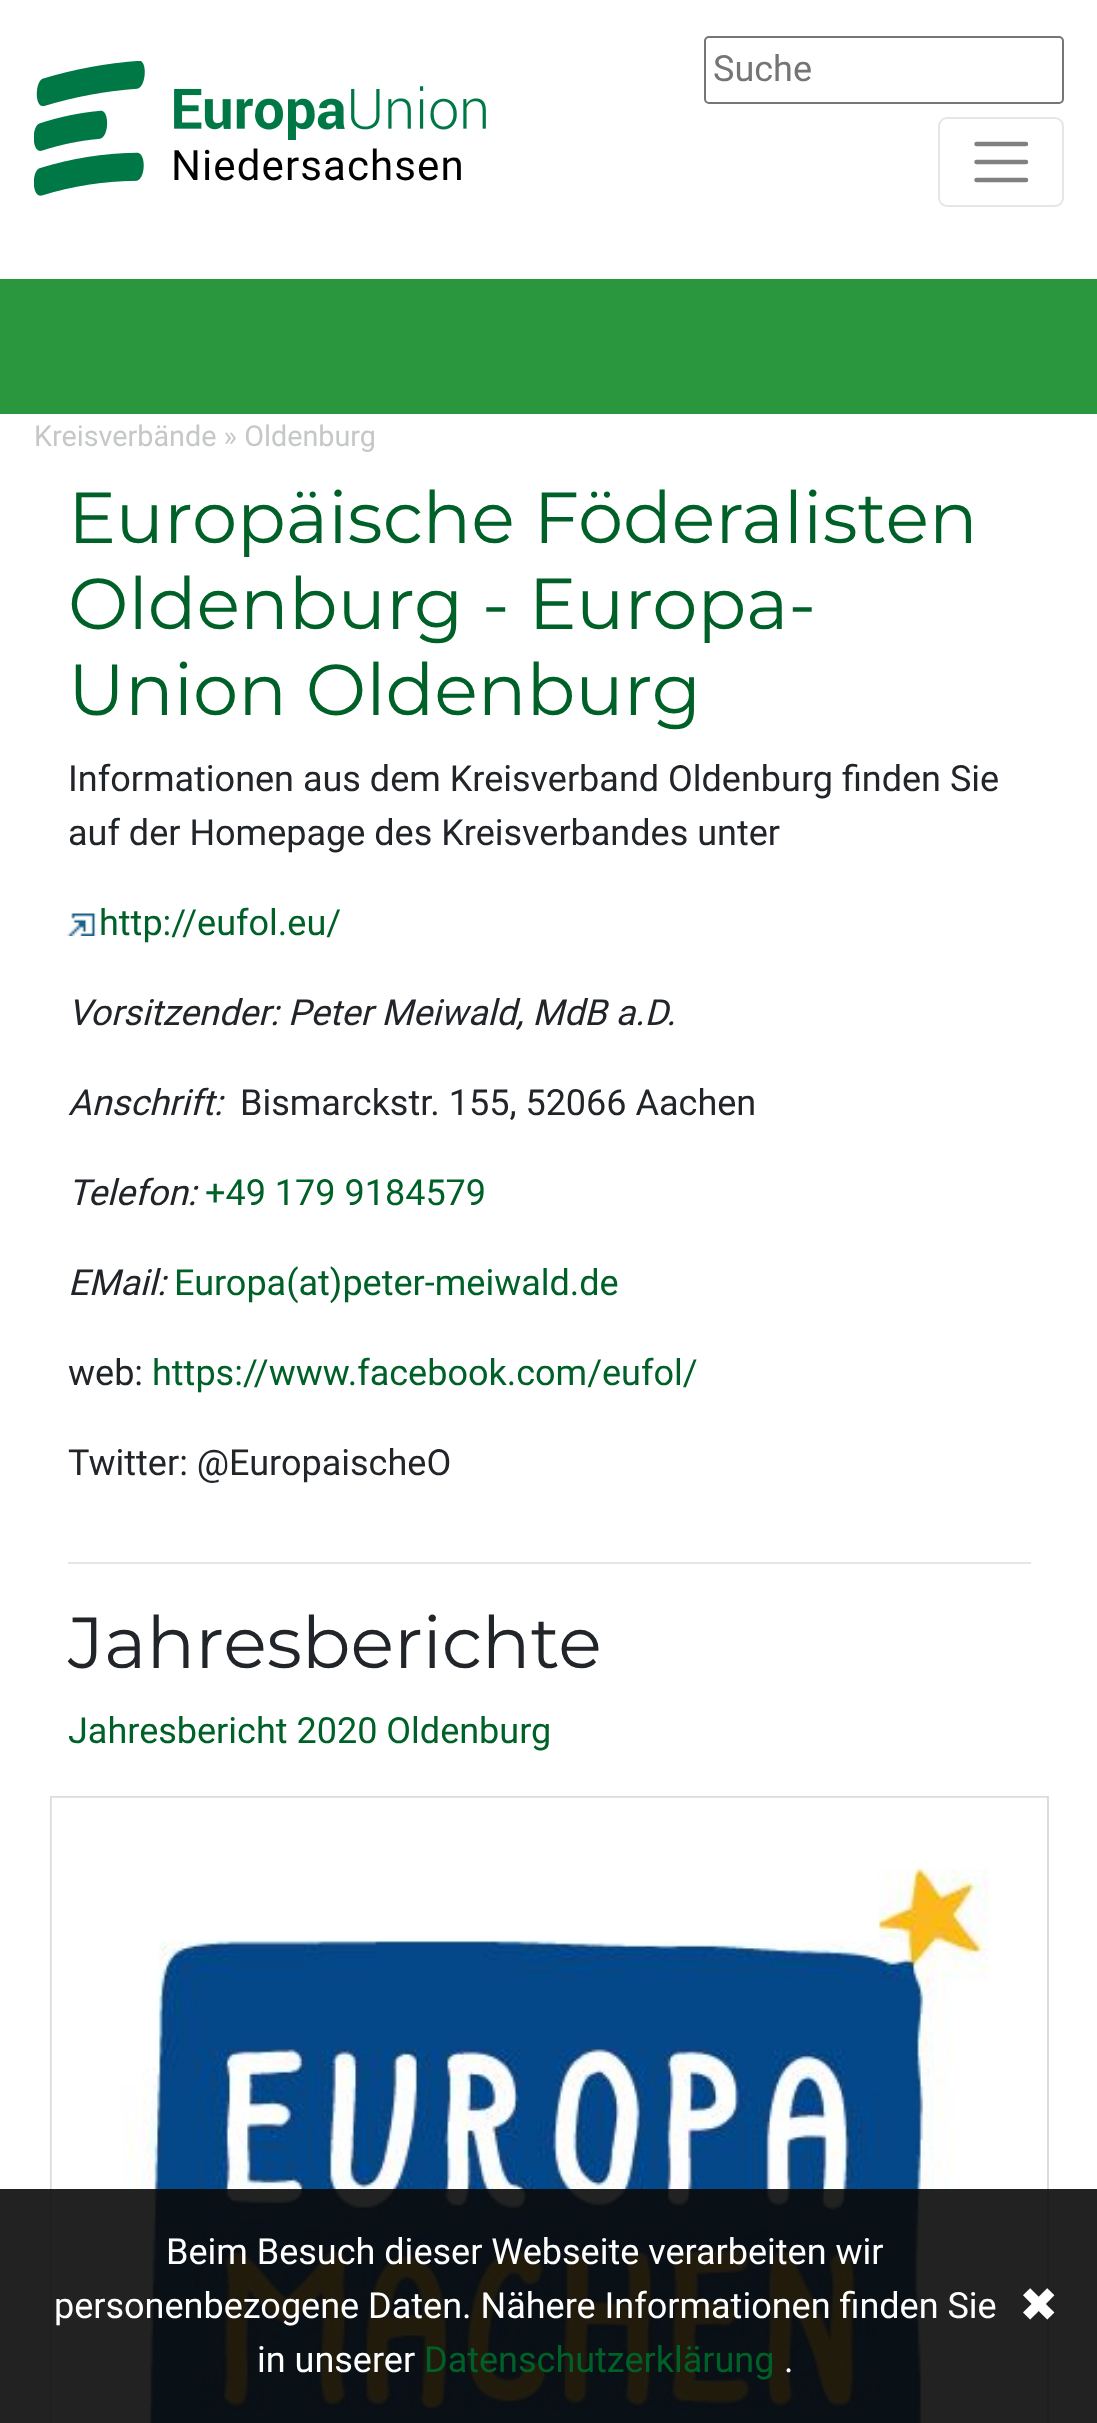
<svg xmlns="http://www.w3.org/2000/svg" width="1097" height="2423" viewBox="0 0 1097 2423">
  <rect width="100%" height="100%" fill="#fff"/>
  <rect x="705" y="37" width="358" height="66" rx="4" fill="none" stroke="#767676" stroke-width="2"/>
  <image x="34" y="61" width="452" height="135" href="img/1.png"/>
  <rect x="939" y="118" width="124" height="88" rx="8" fill="none" stroke="#e6e6e6" stroke-width="2"/>
  <path d="M976.5 144H1026M976.5 162H1026M976.5 180H1026" fill="none" stroke="#808080" stroke-width="4.5" stroke-linecap="round"/>
  <path d="M0 279h1097v135H0z" fill="#2a973e"/>
  <image x="67" y="913" width="29" height="23" href="img/2.png"/>
  <path d="M68 1562h963v2H68z" fill="#e6e6e6"/>
  <path d="M51 1797h997v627H51z" fill="none" stroke="#dedbdb" stroke-width="2"/>
  <image x="51" y="1797" width="995" height="626" href="img/3.png"/>
  <path d="M0 2189h1097v234H0z" fill="#0a0a0ae6"/>
  <text x="713" y="81" font-family="Roboto" font-size="36" fill="#757575">Suche</text>
  <text x="171" y="180" font-family="Roboto" font-size="42" letter-spacing="1.1" fill="#000">Niedersachsen</text>
  <text x="34" y="446" font-family="Roboto" font-size="28.75" fill="#c5c8c7">Kreisverbände » Oldenburg</text>
  <g font-family="Montserrat" font-size="72" fill="#006128">
    <text x="68" y="543">Europäische Föderalisten</text>
    <text x="68" y="629">Oldenburg - Europa-</text>
    <text x="68" y="715">Union Oldenburg</text>
  </g>
  <g font-family="Roboto" font-size="36" fill="#212529">
    <text x="68" y="791">Informationen aus dem Kreisverband Oldenburg finden Sie</text>
    <text x="68" y="845">auf der Homepage des Kreisverbandes unter</text>
  </g>
  <text x="99" y="935" font-family="Roboto" font-size="36" fill="#006128">http://eufol.eu/</text>
  <g font-family="Roboto" font-size="36" font-style="italic" fill="#212529">
    <text x="68" y="1025">Vorsitzender: Peter Meiwald, MdB a.D.</text>
    <text x="68" y="1115">Anschrift:</text>
  </g>
  <text x="240" y="1115" font-family="Roboto" font-size="36" fill="#212529">Bismarckstr. 155, 52066 Aachen</text>
  <text x="68" y="1205" font-family="Roboto" font-size="36" font-style="italic" fill="#212529">Telefon:</text>
  <text x="205" y="1205" font-family="Roboto" font-size="36" fill="#006128">+49 179 9184579</text>
  <text x="68" y="1295" font-family="Roboto" font-size="36" font-style="italic" fill="#212529">EMail:</text>
  <text x="174" y="1295" font-family="Roboto" font-size="36" fill="#006128">Europa(at)peter-meiwald.de</text>
  <text x="68" y="1385" font-family="Roboto" font-size="36" fill="#212529">web:</text>
  <text x="152" y="1385" font-family="Roboto" font-size="36" fill="#006128">https://www.facebook.com/eufol/</text>
  <text x="68" y="1475" font-family="Roboto" font-size="36" fill="#212529">Twitter: @EuropaischeO</text>
  <text x="68" y="1668" font-family="Montserrat" font-size="72" fill="#212529">Jahresberichte</text>
  <text x="68" y="1743" font-family="Roboto" font-size="36" fill="#006128">Jahresbericht 2020 Oldenburg</text>
  <g font-family="Roboto" font-size="36" fill="#fff">
    <text x="166" y="2264">Beim Besuch dieser Webseite verarbeiten wir</text>
    <text x="54" y="2318">personenbezogene Daten. Nähere Informationen finden Sie</text>
    <text x="257" y="2372">in unserer</text>
  </g>
  <text x="424" y="2372" font-family="Roboto" font-size="36" fill="#006128">Datenschutzerklärung</text>
  <text x="784" y="2372" font-family="Roboto" font-size="36" fill="#fff">.</text>
  <text x="1019" y="2321" font-family="DejaVu Sans" font-size="47" fill="#fff">✖</text>
</svg>
